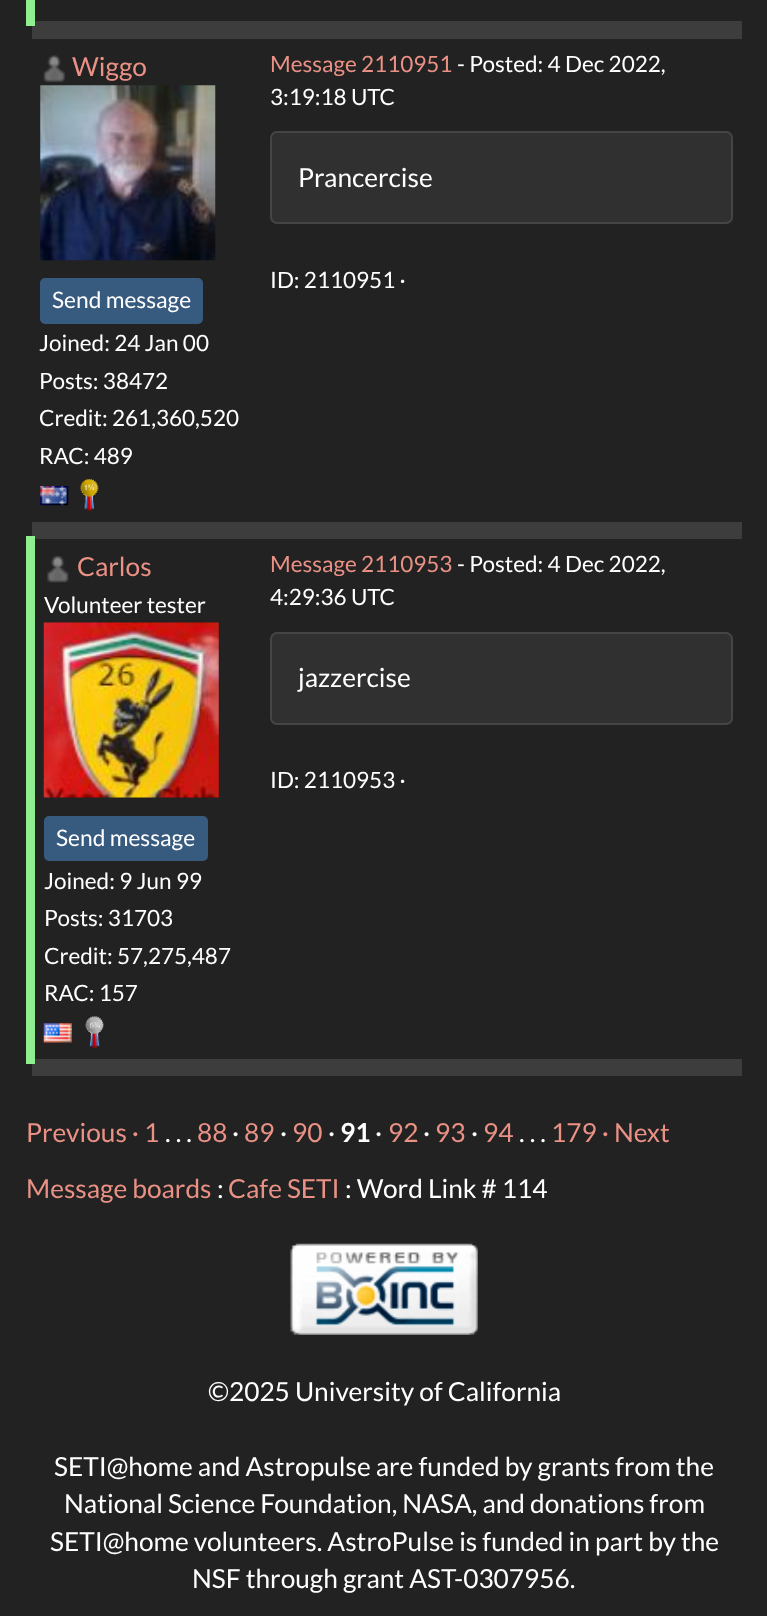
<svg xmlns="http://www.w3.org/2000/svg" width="767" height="1616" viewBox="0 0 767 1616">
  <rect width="100%" height="100%" fill="#222"/>
  <path d="M32 21h710v18H32z" fill="#3d3d3d"/>
  <path d="M26 0h9v26H26z" fill="#90ee90"/>
  <image x="43" y="55" width="23" height="27" href="img/1.png"/>
  <image x="40" y="85" width="176" height="176" href="img/2.png"/>
  <rect x="42" y="280" width="159" height="42" rx="3" fill="#375a7f" stroke="#375a7f" stroke-width="4"/>
  <image x="40" y="486" width="29" height="20" href="img/3.png"/>
  <image x="80" y="478" width="19" height="34" href="img/4.png"/>
  <rect x="271" y="132" width="461" height="91" rx="6" fill="#303030" stroke="#464545" stroke-width="2"/>
  <path d="M32 522h710v17H32z" fill="#3d3d3d"/>
  <path d="M32 1059h710v17H32z" fill="#3d3d3d"/>
  <path d="M26 536h9v528H26z" fill="#90ee90"/>
  <image x="47" y="556" width="22" height="27" href="img/5.png"/>
  <image x="43" y="622" width="176" height="176" href="img/6.png"/>
  <rect x="46" y="818" width="160" height="41" rx="3" fill="#375a7f" stroke="#375a7f" stroke-width="4"/>
  <image x="43" y="1023" width="29" height="20" href="img/7.png"/>
  <image x="85" y="1016" width="19" height="33" href="img/8.png"/>
  <rect x="271" y="633" width="461" height="91" rx="6" fill="#303030" stroke="#464545" stroke-width="2"/>
  <image x="290" y="1243" width="188" height="92" href="img/9.png"/>
  <text x="72" y="76" font-family="Lato" font-size="26.25" fill="#ea9185">Wiggo</text>
  <text x="52" y="308" font-family="Lato" font-size="22.75" fill="#fff">Send message</text>
  <g font-family="Lato" font-size="22.5" fill="#fff">
    <text x="39" y="351">Joined: 24 Jan 00</text>
    <text x="39" y="389">Posts: 38472</text>
    <text x="39" y="426">Credit: 261,360,520</text>
    <text x="39" y="464">RAC: 489</text>
  </g>
  <text x="270" y="72" font-family="Lato" font-size="22.5" fill="#ea9185">Message 2110951</text>
  <g font-family="Lato" font-size="22.5" fill="#fff">
    <text x="457" y="72">- Posted: 4 Dec 2022,</text>
    <text x="270" y="105">3:19:18 UTC</text>
  </g>
  <text x="298" y="187" font-family="Lato" font-size="26.25" fill="#fff">Prancercise</text>
  <text x="270" y="288" font-family="Lato" font-size="22.5" fill="#fff">ID: 2110951 ·</text>
  <text x="77" y="576" font-family="Lato" font-size="26.25" fill="#ea9185">Carlos</text>
  <text x="44" y="613" font-family="Lato" font-size="22.5" fill="#fff">Volunteer tester</text>
  <text x="56" y="846" font-family="Lato" font-size="22.75" fill="#fff">Send message</text>
  <g font-family="Lato" font-size="22.5" fill="#fff">
    <text x="44" y="889">Joined: 9 Jun 99</text>
    <text x="44" y="926">Posts: 31703</text>
    <text x="44" y="964">Credit: 57,275,487</text>
    <text x="44" y="1001">RAC: 157</text>
  </g>
  <text x="270" y="572" font-family="Lato" font-size="22.5" fill="#ea9185">Message 2110953</text>
  <g font-family="Lato" font-size="22.5" fill="#fff">
    <text x="457" y="572">- Posted: 4 Dec 2022,</text>
    <text x="270" y="605">4:29:36 UTC</text>
  </g>
  <text x="298" y="687" font-family="Lato" font-size="26.25" fill="#fff">jazzercise</text>
  <text x="270" y="788" font-family="Lato" font-size="22.5" fill="#fff">ID: 2110953 ·</text>
  <g font-family="Lato" font-size="26.25" fill="#ea9185">
    <text x="26" y="1142">Previous · 1</text>
    <text x="197" y="1142">88</text>
  </g>
  <text x="232" y="1142" font-family="Lato" font-size="26.25" fill="#fff">·</text>
  <text x="244" y="1142" font-family="Lato" font-size="26.25" fill="#ea9185">89</text>
  <text x="280" y="1142" font-family="Lato" font-size="26.25" fill="#fff">·</text>
  <text x="292" y="1142" font-family="Lato" font-size="26.25" fill="#ea9185">90</text>
  <text x="328" y="1142" font-family="Lato" font-size="26.25" fill="#fff">·</text>
  <text x="340" y="1142" font-family="Lato" font-size="26.25" font-weight="bold" fill="#fff">91</text>
  <text x="375" y="1142" font-family="Lato" font-size="26.25" fill="#fff">·</text>
  <text x="388" y="1142" font-family="Lato" font-size="26.25" fill="#ea9185">92</text>
  <text x="423" y="1142" font-family="Lato" font-size="26.25" fill="#fff">·</text>
  <text x="435" y="1142" font-family="Lato" font-size="26.25" fill="#ea9185">93</text>
  <text x="471" y="1142" font-family="Lato" font-size="26.25" fill="#fff">·</text>
  <g font-family="Lato" font-size="26.25" fill="#ea9185">
    <text x="483" y="1142">94</text>
    <text x="551" y="1142">179 · Next</text>
  </g>
  <g font-family="Lato" font-size="26.25" fill="#fff">
    <text x="165" y="1142">. . .</text>
    <text x="519" y="1142">. . .</text>
  </g>
  <text x="26" y="1198" font-family="Lato" font-size="26.25" fill="#ea9185">Message boards</text>
  <text x="217" y="1198" font-family="Lato" font-size="26.25" fill="#fff">:</text>
  <text x="228" y="1198" font-family="Lato" font-size="26.25" fill="#ea9185">Cafe SETI</text>
  <g font-family="Lato" font-size="26.25" fill="#fff">
    <text x="345" y="1198">: Word Link # 114</text>
    <text x="208" y="1401">©2025 University of California</text>
    <text x="54" y="1476">SETI@home and Astropulse are funded by grants from the</text>
    <text x="64" y="1513">National Science Foundation, NASA, and donations from</text>
    <text x="50" y="1551">SETI@home volunteers. AstroPulse is funded in part by the</text>
    <text x="192" y="1588">NSF through grant AST-0307956.</text>
  </g>
</svg>
